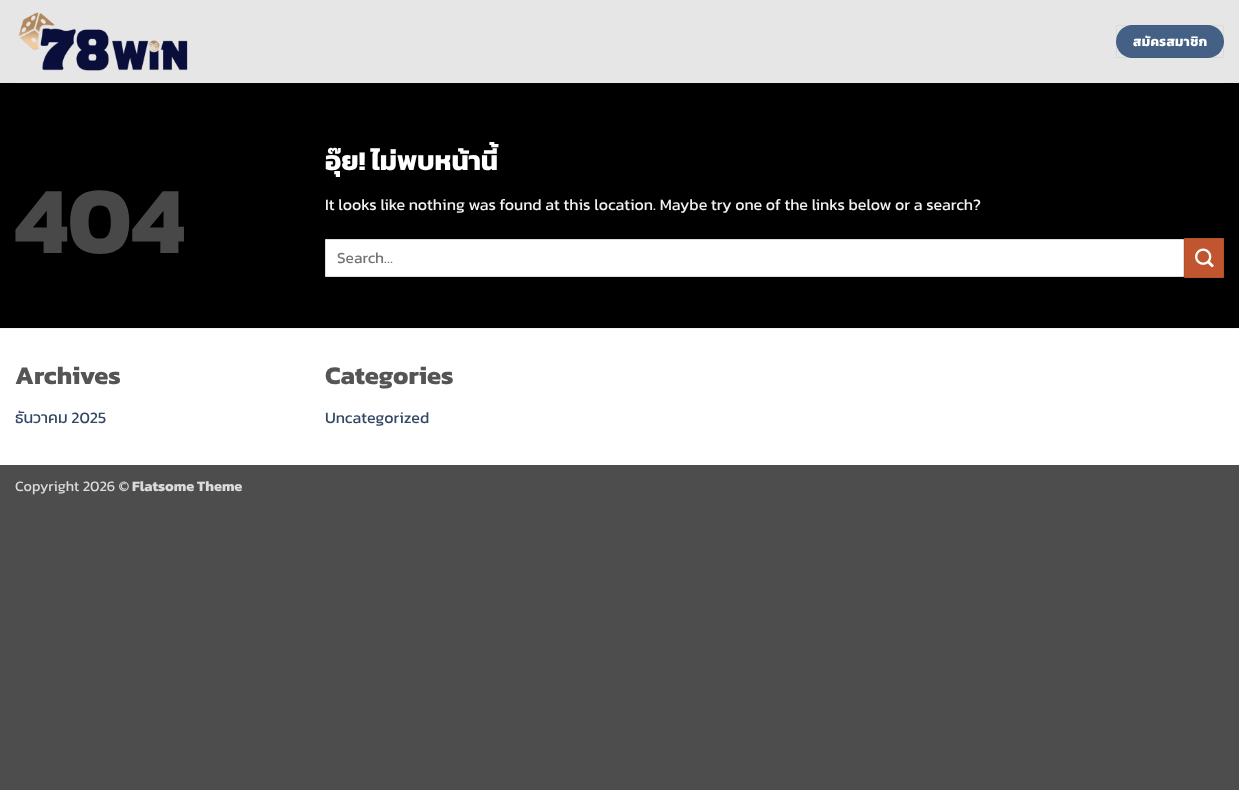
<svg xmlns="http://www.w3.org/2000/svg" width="1239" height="790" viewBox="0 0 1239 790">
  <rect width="100%" height="100%" fill="#4d4d4d"/>
  <path d="M0 83h1239v245H0z" fill="#000"/>
  <path d="M0 0h1239v83H0z" fill="#e6e6e6"/>
  <image x="18" y="12" width="170" height="59" href="img/1.png"/>
  <rect x="1116" y="25" width="108" height="33" rx="16.5" fill="#446084"/>
  <path d="M1116.5 25.5h107v32H1116.5z" fill="none" stroke="#0000000d"/>
  <path d="M15 83h1209v1H15z" fill="#070707"/>
  <path d="M325.5 239.5h858v37H325.5z" fill="#fff" stroke="#ddd"/>
  <path d="M1184.5 238.5h39v39H1184.5z" fill="#c05530" stroke="#b6512e"/>
  <image x="1195" y="248" width="19" height="20" href="img/2.png"/>
  <path d="M0 329h1239v136H0z" fill="#fff"/>
  <path d="M0 328h1239v1H0z" fill="#f2f2f2"/>
  <text x="1133" y="46" font-family="Kanit" font-size="13.25" font-weight="bold" letter-spacing="0.4" fill="#fff">สมัครสมาชิก</text>
  <text x="15" y="253" font-family="Kanit" font-size="96" font-weight="bold" fill="#484848">404</text>
  <text x="325" y="170" font-family="Kanit" font-size="27.25" font-weight="bold" fill="#fff">อุ๊ย! ไม่พบหน้านี้</text>
  <text x="325" y="210" font-family="Kanit" font-size="16" fill="#f1f1f1">It looks like nothing was found at this location. Maybe try one of the links below or a search?</text>
  <text x="337" y="263" font-family="Kanit" font-size="15.5" fill="#757575">Search…</text>
  <text x="15" y="384" font-family="Kanit" font-size="25.5" font-weight="bold" fill="#555">Archives</text>
  <text x="15" y="423" font-family="Kanit" font-size="16" fill="#334862">ธันวาคม 2025</text>
  <text x="325" y="384" font-family="Kanit" font-size="25.5" font-weight="bold" fill="#555">Categories</text>
  <text x="325" y="423" font-family="Kanit" font-size="16" fill="#334862">Uncategorized</text>
  <text x="15" y="491" font-family="Kanit" font-size="14.5" fill="#dbdbdb">Copyright 2026 ©</text>
  <text x="132" y="491" font-family="Kanit" font-size="14.5" font-weight="bold" fill="#dbdbdb">Flatsome Theme</text>
</svg>
